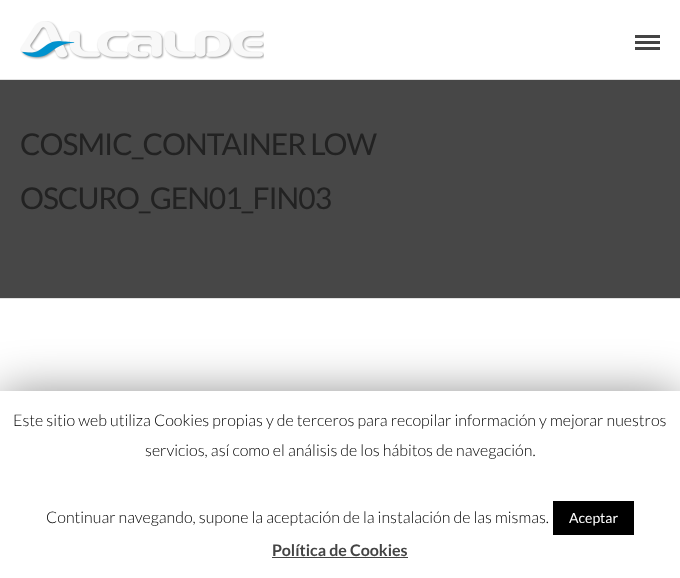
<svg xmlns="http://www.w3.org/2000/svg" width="680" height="578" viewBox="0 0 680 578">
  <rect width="100%" height="100%" fill="#fff"/>
  <path d="M0 79h680v1H0z" fill="#e1e1e1"/>
  <image x="20" y="21" width="244" height="39" href="img/1.png"/>
  <path d="M635 35h25v3H635z" fill="#444"/>
  <path d="M635 41h25v3H635z" fill="#444"/>
  <path d="M635 47h25v3H635z" fill="#444"/>
  <path d="M0 80h680v218H0z" fill="#474747"/>
  <path d="M0 298h680v1H0z" fill="#e1e1e1"/>
  <path d="M0 396h680v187H0z" fill="#00000080" filter="blur(25px)"/>
  <path d="M0 391h680v187H0z" fill="#fff"/>
  <path d="M553 501h81v34H553z" fill="#000"/>
  <path d="M272 557h136v1H272z" fill="#444"/>
  <g font-family="Lato" font-size="30" letter-spacing="-1" fill="#222">
    <text x="20" y="155">COSMIC_CONTAINER LOW</text>
    <text x="20" y="209">OSCURO_GEN01_FIN03</text>
  </g>
  <g font-family="Lato" font-size="16" font-weight="300" fill="#000">
    <text x="13" y="426">Este sitio web utiliza Cookies propias y de terceros para recopilar información y mejorar nuestros</text>
    <text x="145" y="456">servicios, así como el análisis de los hábitos de navegación.</text>
    <text x="46" y="523">Continuar navegando, supone la aceptación de la instalación de las mismas.</text>
  </g>
  <text x="569" y="523" font-family="Lato" font-size="14" fill="#fff">Aceptar</text>
  <text x="272" y="556" font-family="Lato" font-size="16" font-weight="bold" fill="#444">Política de Cookies</text>
</svg>
